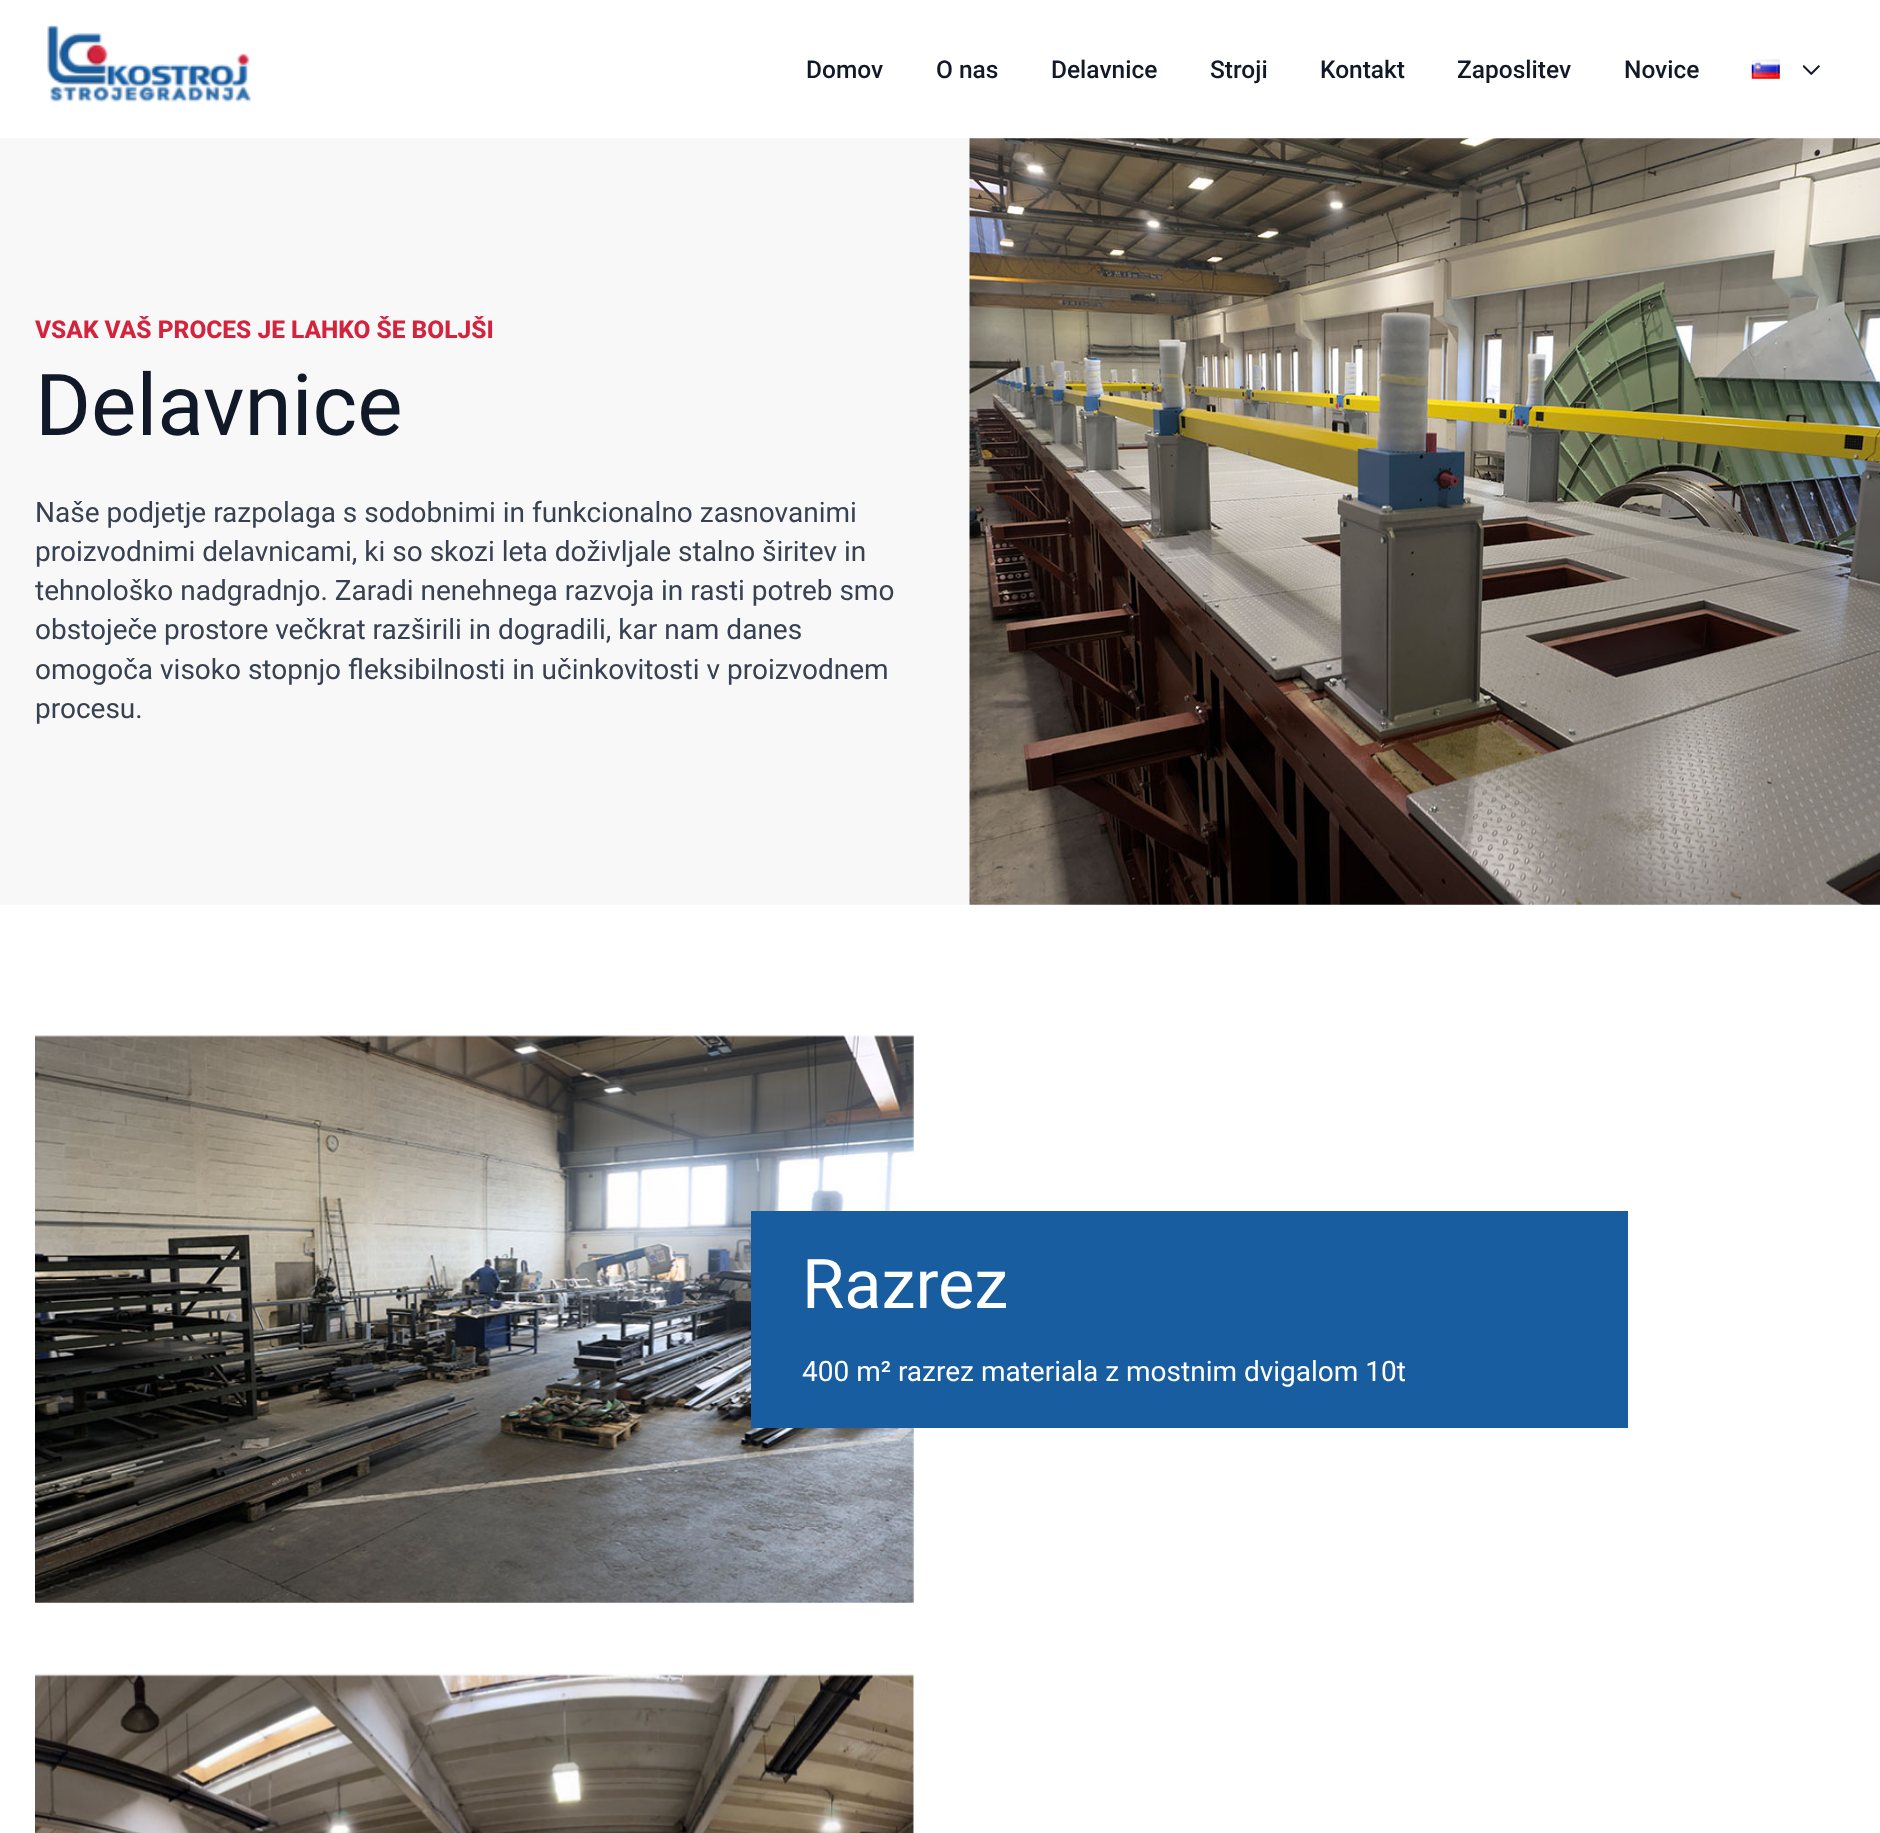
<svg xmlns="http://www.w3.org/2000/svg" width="1880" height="1833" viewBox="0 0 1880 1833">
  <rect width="100%" height="100%" fill="#fff"/>
  <image x="47" y="25" width="204" height="77" href="img/1.png"/>
  <image x="1751" y="59" width="29" height="20" href="img/2.png"/>
  <image x="1803" y="65" width="17" height="10" href="img/3.png"/>
  <path d="M0 138h1880v767H0z" fill="#f8f8f8"/>
  <image x="969" y="138" width="911" height="767" href="img/4.png"/>
  <image x="35" y="1035" width="879" height="568" href="img/5.png"/>
  <path d="M751 1211h877v217H751z" fill="#185d9f"/>
  <image x="35" y="1673" width="879" height="160" href="img/6.png"/>
  <g font-family="Roboto" font-size="24.5" font-weight="500" fill="#111827">
    <text x="806" y="78">Domov</text>
    <text x="936" y="78">O nas</text>
    <text x="1051" y="78">Delavnice</text>
    <text x="1210" y="78">Stroji</text>
    <text x="1320" y="78">Kontakt</text>
    <text x="1457" y="78">Zaposlitev</text>
    <text x="1624" y="78">Novice</text>
  </g>
  <text x="35" y="338" font-family="Roboto" font-size="24.5" font-weight="800" fill="#d4233c">VSAK VAŠ PROCES JE LAHKO ŠE BOLJŠI</text>
  <text x="35" y="435" font-family="Roboto" font-size="85.5" fill="#111827">Delavnice</text>
  <g font-family="Roboto" font-size="28" fill="#374151">
    <text x="35" y="522">Naše podjetje razpolaga s sodobnimi in funkcionalno zasnovanimi</text>
    <text x="35" y="561">proizvodnimi delavnicami, ki so skozi leta doživljale stalno širitev in</text>
    <text x="35" y="600">tehnološko nadgradnjo. Zaradi nenehnega razvoja in rasti potreb smo</text>
    <text x="35" y="639">obstoječe prostore večkrat razširili in dogradili, kar nam danes</text>
    <text x="35" y="679">omogoča visoko stopnjo fleksibilnosti in učinkovitosti v proizvodnem</text>
    <text x="35" y="718">procesu.</text>
  </g>
  <text x="802" y="1308" font-family="Roboto" font-size="68.5" fill="#fff">Razrez</text>
  <text x="802" y="1381" font-family="Roboto" font-size="28" fill="#fff">400 m² razrez materiala z mostnim dvigalom 10t</text>
</svg>
